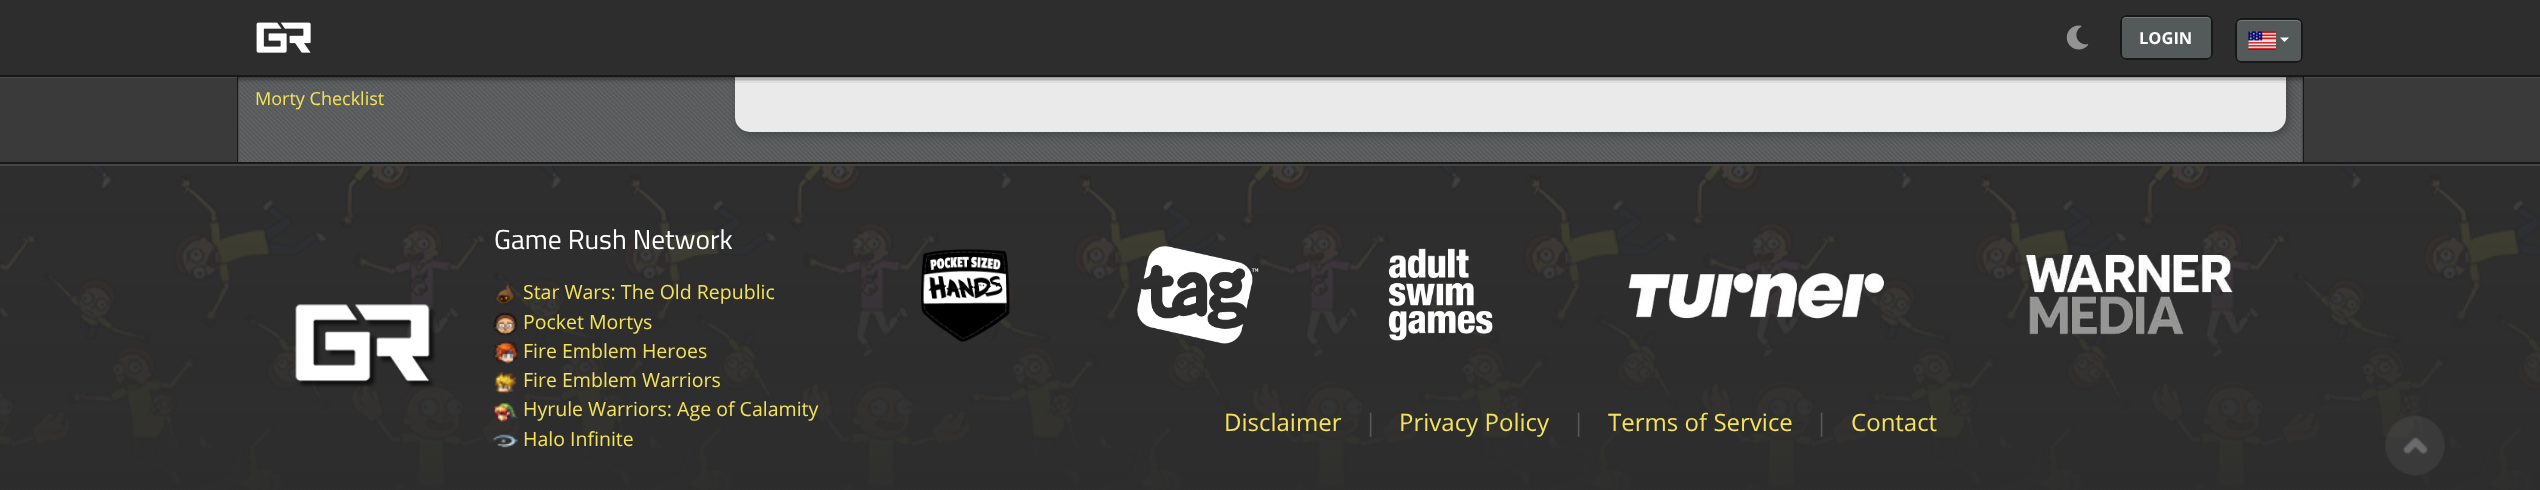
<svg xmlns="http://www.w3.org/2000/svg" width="2540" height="490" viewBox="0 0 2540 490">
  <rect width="100%" height="100%" fill="#3a3a3a"/>
  <path d="M0 77h2540v1H0z" fill="#4a4a4a"/>
  <path d="M2302 77h2v85H2302z" fill="#181818"/>
  <image x="238" y="77" width="2065" height="85" href="img/4.png"/>
  <image x="238" y="77" width="2065" height="85" href="img/5.png"/>
  <path d="M0 75h2540v2H0z" fill="#181818"/>
  <rect x="738" y="-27" width="1551" height="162" rx="15" fill="#00000040" filter="blur(4px)"/>
  <rect x="735" y="-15" width="1551" height="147" rx="15" fill="#eaeaea"/>
  <path d="M0 0h2540v75H0z" fill="#2d2d2d"/>
  <image x="256" y="22" width="55" height="31" href="img/1.png"/>
  <image x="2066" y="25" width="23" height="25" href="img/2.png"/>
  <rect x="2120" y="15" width="93" height="45" rx="6" fill="#545959"/>
  <path d="M2126 18H2206C2209 18 2211 20 2211 22C2211 19 2209 17 2206 17H2126C2123 17 2121 19 2121 22C2121 20 2123 18 2126 18Z" fill="#767a7a"/>
  <rect x="2121" y="16" width="91" height="43" rx="5" fill="none" stroke="#181818" stroke-width="2"/>
  <rect x="2235" y="18" width="68" height="45" rx="6" fill="#545959"/>
  <path d="M2241 21H2296C2299 21 2301 23 2301 26V25C2301 22 2299 20 2296 20H2242C2240 20 2239 21 2238 22Z" fill="#767a7a"/>
  <rect x="2236" y="19" width="66" height="43" rx="5" fill="none" stroke="#181818" stroke-width="2"/>
  <image x="2248" y="31" width="28" height="19" href="img/3.png"/>
  <path d="M2280 37.5H2289L2284.5 42Z" fill="#fff"/>
  <path d="M237 77h1v85H237z" fill="#181818"/>
  <path d="M237 77h2067v6H237z" fill="#0000000d"/>
  <path d="M237 77h2067v4H237z" fill="#00000014"/>
  <path d="M237 77h2067v3H237z" fill="#0000001a"/>
  <path d="M237 77h2067v1H237z" fill="#00000026"/>
  <path d="M735 75h1555v2H735z" fill="#181818"/>
  <image x="0" y="166" width="2540" height="324" href="img/6.png"/>
  <path d="M0 164h2540v2H0z" fill="#454545"/>
  <path d="M0 162h2540v2H0z" fill="#181818"/>
  <image x="295" y="304" width="141" height="83" href="img/7.png"/>
  <image x="495" y="283" width="20" height="22" href="img/8.png"/>
  <image x="493" y="312" width="25" height="24" href="img/9.png"/>
  <image x="493" y="341" width="25" height="23" href="img/10.png"/>
  <image x="494" y="371" width="23" height="23" href="img/11.png"/>
  <image x="493" y="403" width="25" height="20" href="img/12.png"/>
  <image x="493" y="434" width="25" height="14" href="img/13.png"/>
  <image x="921" y="249" width="89" height="93" href="img/14.png"/>
  <image x="1137" y="246" width="122" height="98" href="img/15.png"/>
  <image x="1388" y="248" width="105" height="93" href="img/16.png"/>
  <image x="1628" y="272" width="256" height="47" href="img/17.png"/>
  <image x="2025" y="254" width="208" height="81" href="img/18.png"/>
  <image x="2385" y="415" width="60" height="61" href="img/19.png"/>
  <text x="2139" y="44" font-family="Open Sans" font-size="16.5" font-weight="bold" fill="#fff">LOGIN</text>
  <text x="255" y="105" font-family="Open Sans" font-size="18" fill="#f4e35a">Morty Checklist</text>
  <text x="494" y="249" font-family="Titillium Web" font-size="27.5" fill="#fff">Game Rush Network</text>
  <g font-family="Open Sans" font-size="19.5" fill="#f4e35a">
    <text x="523" y="299">Star Wars: The Old Republic</text>
    <text x="523" y="329">Pocket Mortys</text>
    <text x="523" y="358">Fire Emblem Heroes</text>
    <text x="523" y="387">Fire Emblem Warriors</text>
    <text x="523" y="416">Hyrule Warriors: Age of Calamity</text>
    <text x="523" y="446">Halo Infinite</text>
  </g>
  <text x="1224" y="431" font-family="Open Sans" font-size="24" fill="#f4e35a">Disclaimer</text>
  <text x="1364" y="431" font-family="Open Sans" font-size="24" fill="#575757">|</text>
  <text x="1399" y="431" font-family="Open Sans" font-size="24" fill="#f4e35a">Privacy Policy</text>
  <text x="1572" y="431" font-family="Open Sans" font-size="24" fill="#575757">|</text>
  <text x="1608" y="431" font-family="Open Sans" font-size="24" fill="#f4e35a">Terms of Service</text>
  <text x="1815" y="431" font-family="Open Sans" font-size="24" fill="#575757">|</text>
  <text x="1851" y="431" font-family="Open Sans" font-size="24" fill="#f4e35a">Contact</text>
</svg>
